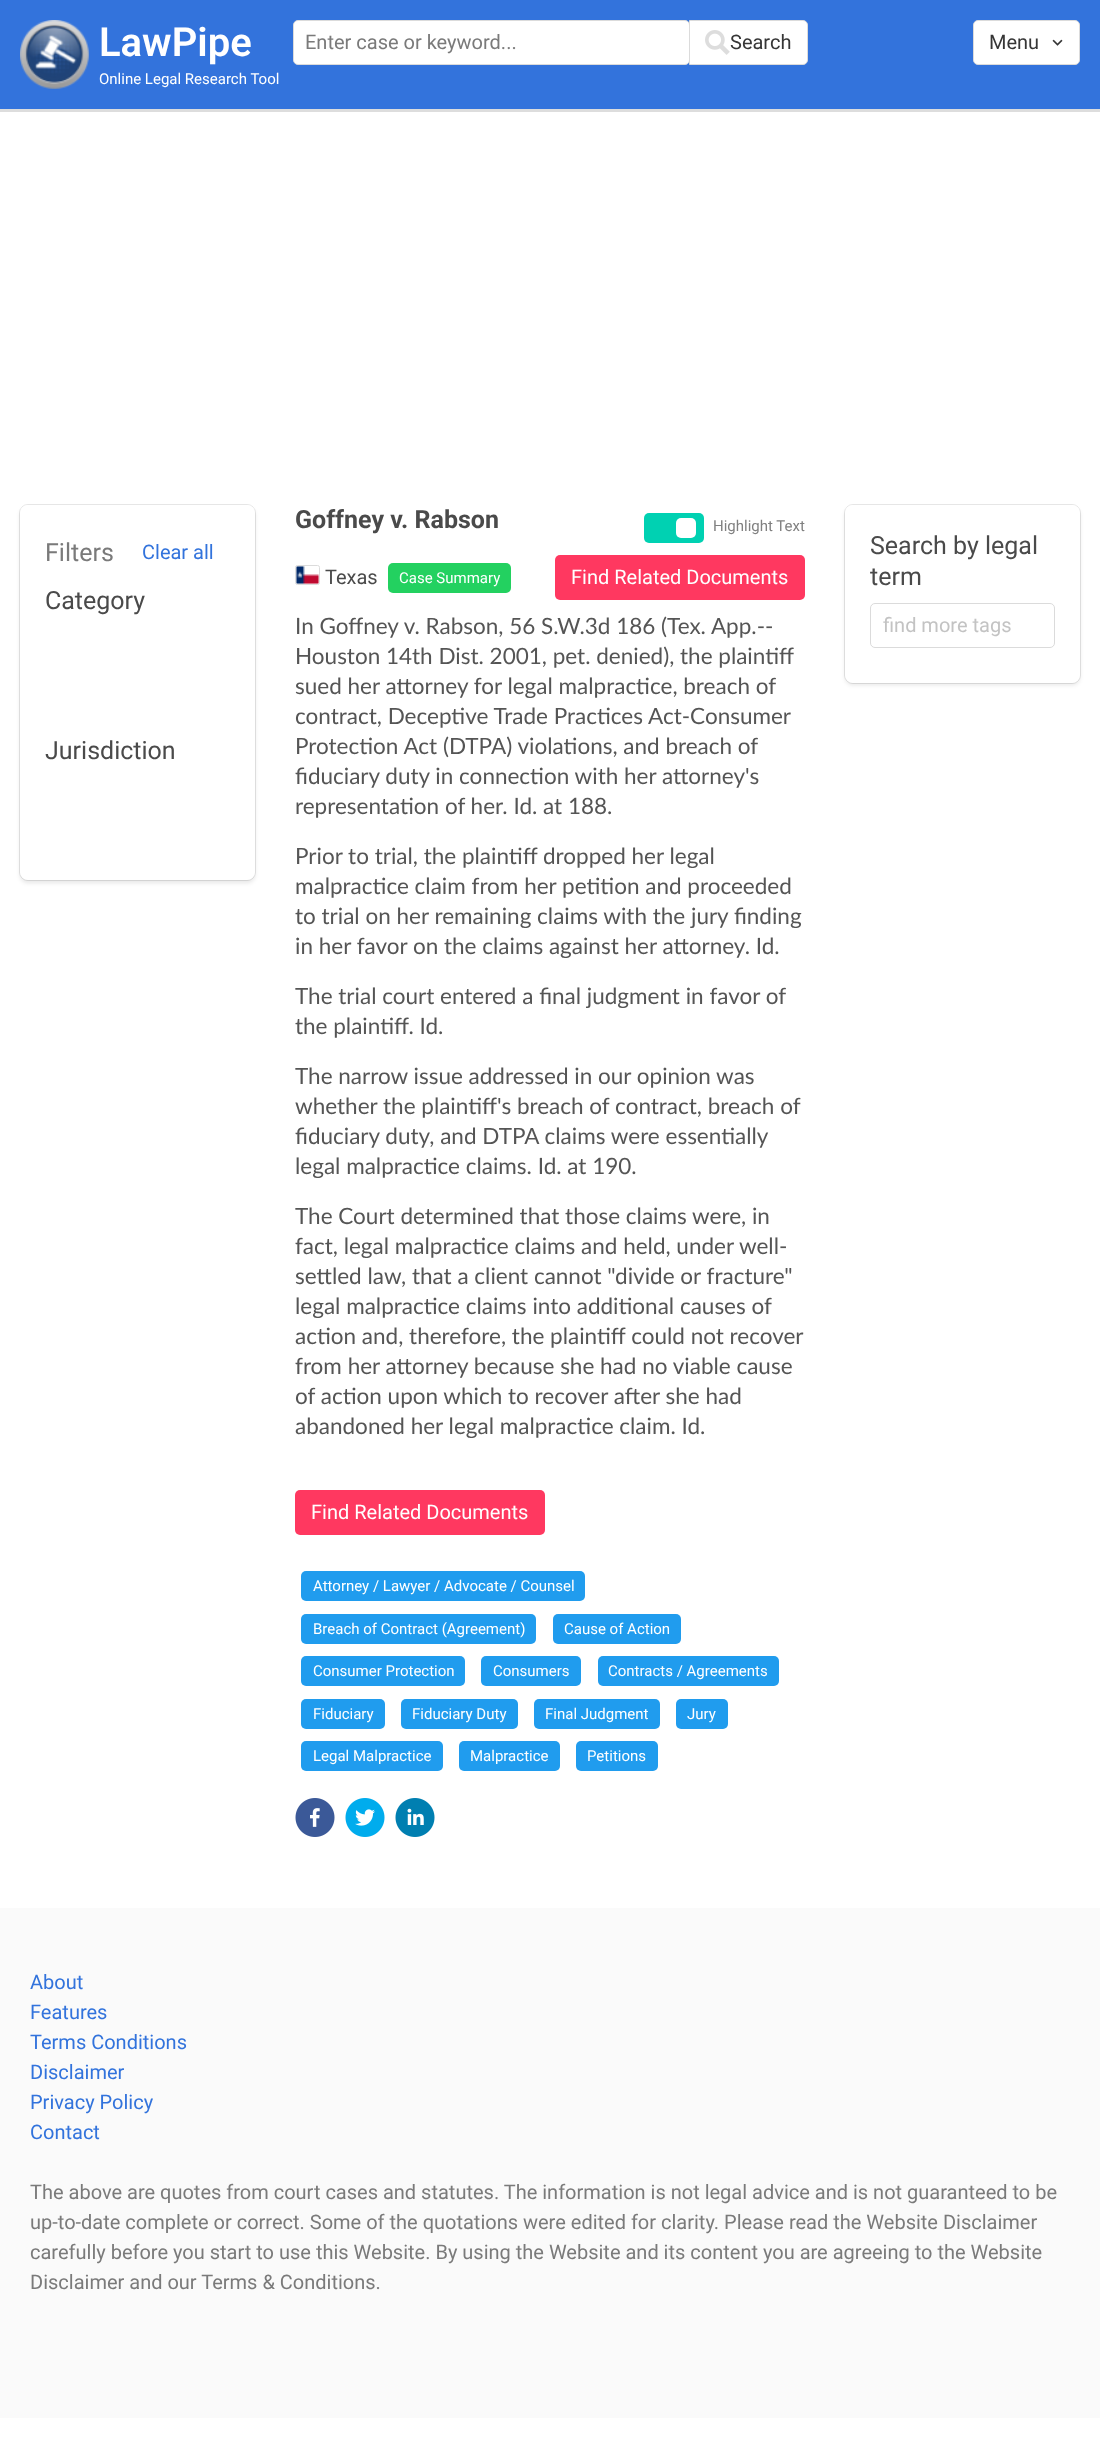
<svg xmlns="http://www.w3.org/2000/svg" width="1100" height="2462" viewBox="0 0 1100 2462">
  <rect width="100%" height="100%" fill="#fff"/>
  <path d="M0 0h1100v109H0z" fill="#3373dc"/>
  <path d="M0 109h1100v3H0z" fill="#ddd"/>
  <image x="20" y="20" width="69" height="69" href="img/1.png"/>
  <rect x="293.5" y="20.5" width="396" height="44" rx="4.5" fill="#fff" stroke="#dbdbdb"/>
  <path d="M689.5 20.5H803C805.5 20.5 807.5 22.5 807.5 25V60C807.5 62.5 805.5 64.5 803 64.5H689.5Z" fill="#fff" stroke="#dbdbdb"/>
  <image x="705" y="30" width="25" height="25" href="img/2.png"/>
  <rect x="973.5" y="20.5" width="106" height="44" rx="4.5" fill="#fff" stroke="#dbdbdb"/>
  <image x="1052" y="39" width="11" height="7" href="img/3.png"/>
  <rect x="19.5" y="504.5" width="236" height="376" rx="8.5" fill="none" stroke="#e7e7e7"/>
  <rect x="20" y="508" width="235" height="375" rx="8" fill="#0a0a0a1a" filter="blur(2px)"/>
  <rect x="20" y="505" width="235" height="375" rx="8" fill="#fff"/>
  <rect x="644" y="513" width="60" height="30" rx="5" fill="#00d1b2"/>
  <rect x="676" y="518" width="20" height="20" rx="5" fill="#fff"/>
  <rect x="295.5" y="565.5" width="24" height="19" rx="2" fill="none" stroke="#dbdbdb"/>
  <image x="296" y="566" width="23" height="18" href="img/4.png"/>
  <rect x="388" y="563" width="123" height="30" rx="5" fill="#23d160"/>
  <rect x="555" y="555" width="250" height="45" rx="5" fill="#ff3860"/>
  <rect x="295" y="1490" width="250" height="45" rx="5" fill="#ff3860"/>
  <rect x="301" y="1571" width="284" height="30" rx="5" fill="#209cee"/>
  <rect x="301" y="1614" width="235" height="30" rx="5" fill="#209cee"/>
  <rect x="553" y="1614" width="128" height="30" rx="5" fill="#209cee"/>
  <rect x="301" y="1656" width="164" height="30" rx="5" fill="#209cee"/>
  <rect x="481" y="1656" width="100" height="30" rx="5" fill="#209cee"/>
  <rect x="598" y="1656" width="181" height="30" rx="5" fill="#209cee"/>
  <rect x="301" y="1699" width="84" height="30" rx="5" fill="#209cee"/>
  <rect x="401" y="1699" width="117" height="30" rx="5" fill="#209cee"/>
  <rect x="534" y="1699" width="126" height="30" rx="5" fill="#209cee"/>
  <rect x="676" y="1699" width="52" height="30" rx="5" fill="#209cee"/>
  <rect x="301" y="1741" width="142" height="30" rx="5" fill="#209cee"/>
  <rect x="459" y="1741" width="101" height="30" rx="5" fill="#209cee"/>
  <rect x="576" y="1741" width="82" height="30" rx="5" fill="#209cee"/>
  <image x="295" y="1798" width="40" height="39" href="img/5.png"/>
  <image x="345" y="1798" width="40" height="39" href="img/6.png"/>
  <image x="395" y="1798" width="40" height="39" href="img/7.png"/>
  <rect x="844.5" y="504.5" width="236" height="179" rx="8.5" fill="none" stroke="#e7e7e7"/>
  <rect x="845" y="508" width="235" height="177" rx="8" fill="#0a0a0a1a" filter="blur(2px)"/>
  <rect x="845" y="505" width="235" height="178" rx="8" fill="#fff"/>
  <rect x="870.5" y="603.5" width="184" height="44" rx="4.5" fill="none" stroke="#dbdbdb"/>
  <path d="M0 1908h1100v510H0z" fill="#fafafa"/>
  <text x="99" y="56" font-family="Roboto" font-size="40" font-weight="600" fill="#fff">LawPipe</text>
  <text x="99" y="84" font-family="Roboto" font-size="15" fill="#fff">Online Legal Research Tool</text>
  <text x="305" y="49" font-family="Roboto" font-size="20" fill="#7a7a7a">Enter case or keyword...</text>
  <g font-family="Roboto" font-size="20" fill="#363636">
    <text x="730" y="49">Search</text>
    <text x="989" y="49">Menu</text>
  </g>
  <text x="45" y="561" font-family="Roboto" font-size="25" fill="#7a7a7a">Filters</text>
  <text x="142" y="559" font-family="Roboto" font-size="20" fill="#3273dc">Clear all</text>
  <g font-family="Roboto" font-size="25" fill="#4a4a4a">
    <text x="45" y="609">Category</text>
    <text x="45" y="759">Jurisdiction</text>
  </g>
  <text x="295" y="528" font-family="Roboto" font-size="25" font-weight="bold" fill="#4a4a4a">Goffney v. Rabson</text>
  <text x="713" y="531" font-family="Roboto" font-size="15" fill="#808080">Highlight Text</text>
  <text x="325" y="584" font-family="Roboto" font-size="20" fill="#4a4a4a">Texas</text>
  <text x="399" y="583" font-family="Roboto" font-size="15" fill="#fff">Case Summary</text>
  <text x="571" y="584" font-family="Roboto" font-size="20" fill="#fff">Find Related Documents</text>
  <g font-family="Lato" font-size="22.5" fill="#555">
    <text x="295" y="634">In Goffney v. Rabson, 56 S.W.3d 186 (Tex. App.--</text>
    <text x="295" y="664">Houston 14th Dist. 2001, pet. denied), the plaintiff</text>
    <text x="295" y="694">sued her attorney for legal malpractice, breach of</text>
    <text x="295" y="724">contract, Deceptive Trade Practices Act-Consumer</text>
    <text x="295" y="754">Protection Act (DTPA) violations, and breach of</text>
    <text x="295" y="784">fiduciary duty in connection with her attorney's</text>
    <text x="295" y="814">representation of her. Id. at 188.</text>
    <text x="295" y="864">Prior to trial, the plaintiff dropped her legal</text>
    <text x="295" y="894">malpractice claim from her petition and proceeded</text>
    <text x="295" y="924">to trial on her remaining claims with the jury finding</text>
    <text x="295" y="954">in her favor on the claims against her attorney. Id.</text>
    <text x="295" y="1004">The trial court entered a final judgment in favor of</text>
    <text x="295" y="1034">the plaintiff. Id.</text>
    <text x="295" y="1084">The narrow issue addressed in our opinion was</text>
    <text x="295" y="1114">whether the plaintiff's breach of contract, breach of</text>
    <text x="295" y="1144">fiduciary duty, and DTPA claims were essentially</text>
    <text x="295" y="1174">legal malpractice claims. Id. at 190.</text>
    <text x="295" y="1224">The Court determined that those claims were, in</text>
    <text x="295" y="1254">fact, legal malpractice claims and held, under well-</text>
    <text x="295" y="1284">settled law, that a client cannot "divide or fracture"</text>
    <text x="295" y="1314">legal malpractice claims into additional causes of</text>
    <text x="295" y="1344">action and, therefore, the plaintiff could not recover</text>
    <text x="295" y="1374">from her attorney because she had no viable cause</text>
    <text x="295" y="1404">of action upon which to recover after she had</text>
    <text x="295" y="1434">abandoned her legal malpractice claim. Id.</text>
  </g>
  <text x="311" y="1519" font-family="Roboto" font-size="20" fill="#fff">Find Related Documents</text>
  <g font-family="Roboto" font-size="15" fill="#fff">
    <text x="313" y="1591">Attorney / Lawyer / Advocate / Counsel</text>
    <text x="313" y="1634">Breach of Contract (Agreement)</text>
    <text x="564" y="1634">Cause of Action</text>
    <text x="313" y="1676">Consumer Protection</text>
    <text x="493" y="1676">Consumers</text>
    <text x="608" y="1676">Contracts / Agreements</text>
    <text x="313" y="1719">Fiduciary</text>
    <text x="412" y="1719">Fiduciary Duty</text>
    <text x="545" y="1719">Final Judgment</text>
    <text x="687" y="1719">Jury</text>
    <text x="313" y="1761">Legal Malpractice</text>
    <text x="470" y="1761">Malpractice</text>
    <text x="587" y="1761">Petitions</text>
  </g>
  <g font-family="Roboto" font-size="25" fill="#4a4a4a">
    <text x="870" y="554">Search by legal</text>
    <text x="870" y="585">term</text>
  </g>
  <text x="883" y="632" font-family="Roboto" font-size="20" fill="#c3c3c3">find more tags</text>
  <g font-family="Roboto" font-size="20" fill="#3273dc">
    <text x="30" y="1989">About</text>
    <text x="30" y="2019">Features</text>
    <text x="30" y="2049">Terms Conditions</text>
    <text x="30" y="2079">Disclaimer</text>
    <text x="30" y="2109">Privacy Policy</text>
    <text x="30" y="2139">Contact</text>
  </g>
  <g font-family="Roboto" font-size="20" fill="#7a7a7a">
    <text x="30" y="2199">The above are quotes from court cases and statutes. The information is not legal advice and is not guaranteed to be</text>
    <text x="30" y="2229">up-to-date complete or correct. Some of the quotations were edited for clarity. Please read the Website Disclaimer</text>
    <text x="30" y="2259">carefully before you start to use this Website. By using the Website and its content you are agreeing to the Website</text>
    <text x="30" y="2289">Disclaimer and our Terms &amp; Conditions.</text>
  </g>
</svg>
